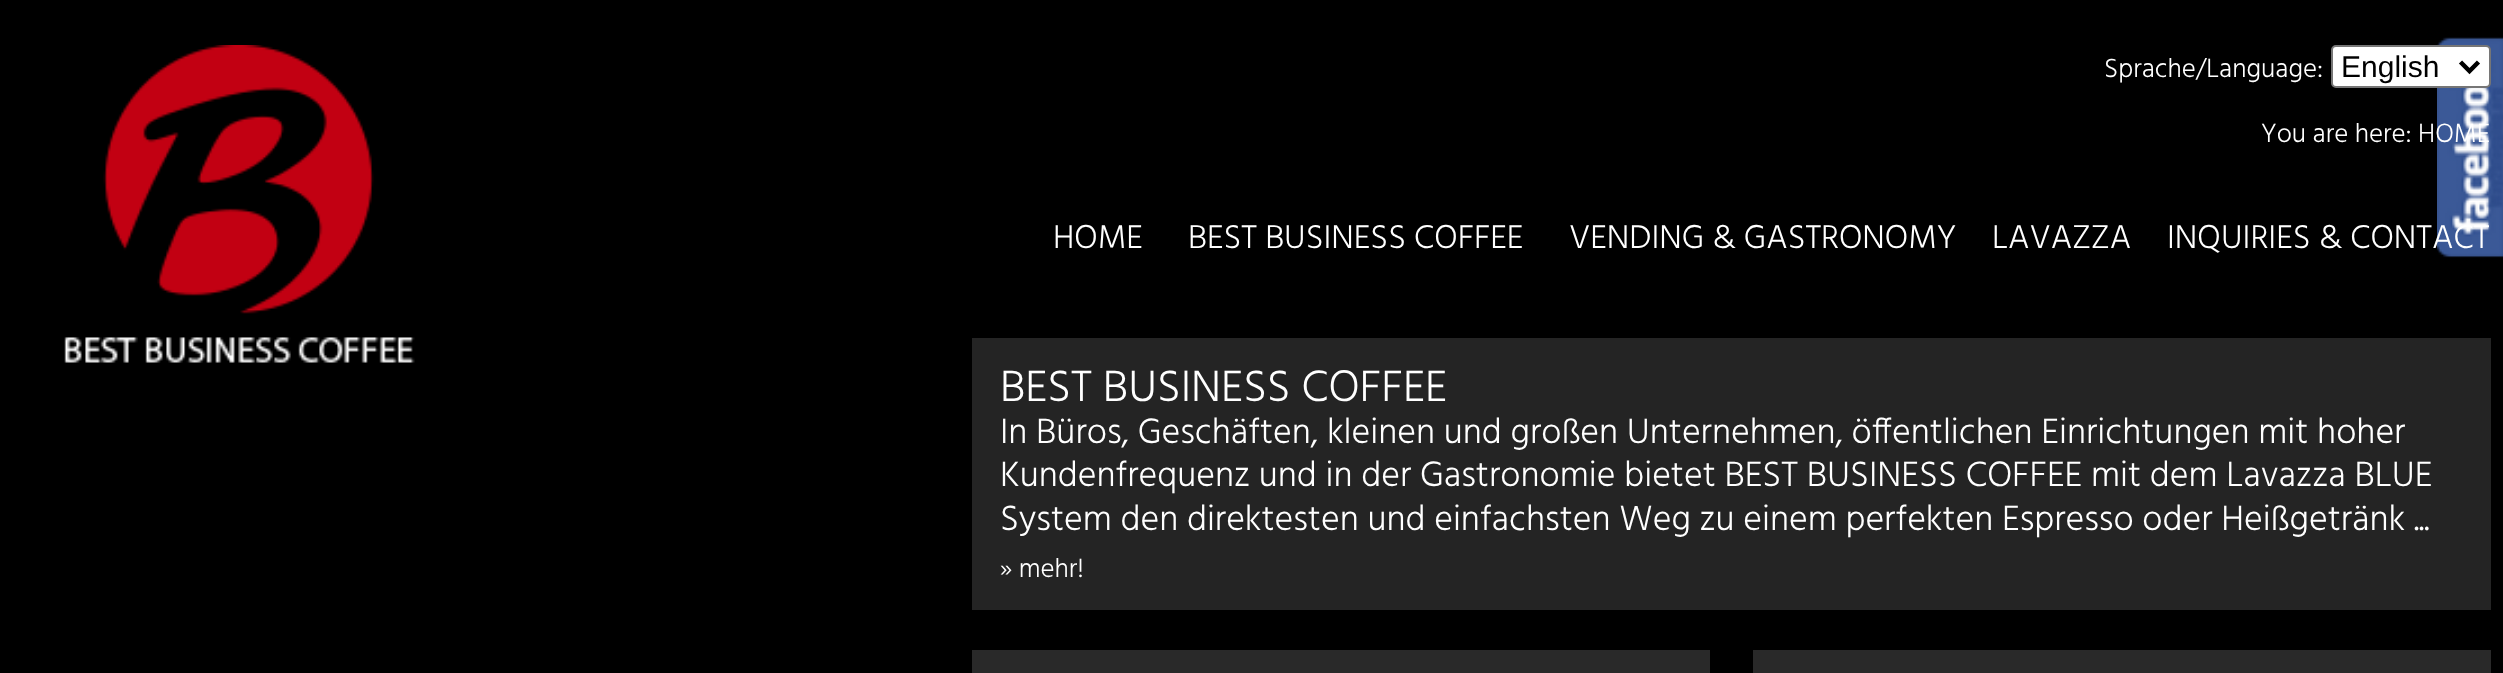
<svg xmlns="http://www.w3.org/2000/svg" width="2503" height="673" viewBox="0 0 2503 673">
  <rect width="100%" height="100%" fill="#000"/>
  <image x="2437" y="37" width="66" height="221" href="img/1.png"/>
  <image x="64" y="45" width="351" height="318" href="img/2.png"/>
  <rect x="2332" y="46" width="158" height="41" rx="4" fill="#fff" stroke="#767676" stroke-width="2"/>
  <path d="M2460.5 62L2469.5 71L2478.5 62" fill="none" stroke="#000" stroke-width="4.5"/>
  <path d="M972 338h1519v272H972z" fill="#242424"/>
  <path d="M972 650h738v23H972z" fill="#292929"/>
  <path d="M1753 650h738v23H1753z" fill="#292929"/>
  <text x="2104" y="77" font-family="Hind" font-size="27" font-weight="300" fill="#fff">Sprache/Language:</text>
  <text x="2341" y="77" font-family="Liberation Sans" font-size="30" fill="#000">English</text>
  <text x="2261" y="142" font-family="Hind" font-size="27" font-weight="300" fill="#fff">You are here: HOME</text>
  <g font-family="Hind" font-size="33.75" font-weight="300" fill="#fff">
    <text x="1053" y="248">HOME</text>
    <text x="1188" y="248">BEST BUSINESS COFFEE</text>
    <text x="1569" y="248">VENDING &amp; GASTRONOMY</text>
    <text x="1992" y="248">LAVAZZA</text>
    <text x="2167" y="248">INQUIRIES &amp; CONTACT</text>
  </g>
  <text x="1000" y="401" font-family="Hind" font-size="45" font-weight="300" fill="#fff">BEST BUSINESS COFFEE</text>
  <g font-family="Hind" font-size="36" font-weight="300" fill="#fff">
    <text x="1000" y="443">In Büros, Geschäften, kleinen und großen Unternehmen, öffentlichen Einrichtungen mit hoher</text>
    <text x="1000" y="486">Kundenfrequenz und in der Gastronomie bietet BEST BUSINESS COFFEE mit dem Lavazza BLUE</text>
    <text x="1000" y="530">System den direktesten und einfachsten Weg zu einem perfekten Espresso oder Heißgetränk ...</text>
  </g>
  <text x="1000" y="577" font-family="Hind" font-size="27" font-weight="300" fill="#fff">» mehr!</text>
</svg>
